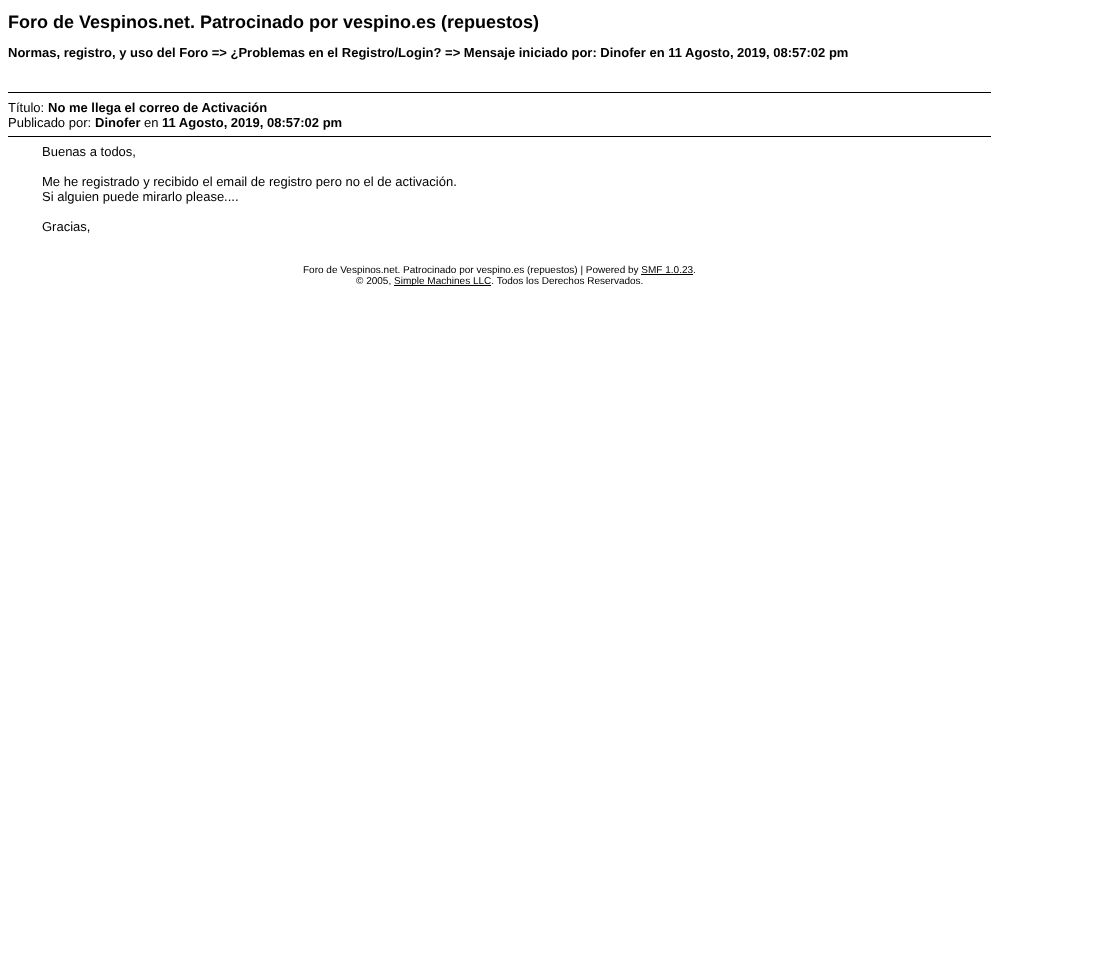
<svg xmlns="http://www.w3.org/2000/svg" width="1108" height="956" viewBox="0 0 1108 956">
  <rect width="100%" height="100%" fill="#fff"/>
  <path d="M8 92h983v1H8z" fill="#000"/>
  <path d="M8 136h983v1H8z" fill="#000"/>
  <path d="M641 274h52v1H641z" fill="#000"/>
  <path d="M394 285h97v1H394z" fill="#000"/>
  <text x="8" y="28" font-family="Liberation Sans" font-size="18" font-weight="bold" fill="#000">Foro de Vespinos.net. Patrocinado por vespino.es (repuestos)</text>
  <text x="8" y="57" font-family="Liberation Sans" font-size="13" font-weight="bold" fill="#000">Normas, registro, y uso del Foro =&gt; ¿Problemas en el Registro/Login? =&gt; Mensaje iniciado por: Dinofer en 11 Agosto, 2019, 08:57:02 pm</text>
  <text x="8" y="112" font-family="Liberation Sans" font-size="13" fill="#000">Título:</text>
  <text x="48" y="112" font-family="Liberation Sans" font-size="13" font-weight="bold" fill="#000">No me llega el correo de Activación</text>
  <text x="8" y="127" font-family="Liberation Sans" font-size="13" fill="#000">Publicado por:</text>
  <text x="95" y="127" font-family="Liberation Sans" font-size="13" font-weight="bold" fill="#000">Dinofer</text>
  <text x="144" y="127" font-family="Liberation Sans" font-size="13" fill="#000">en</text>
  <text x="162" y="127" font-family="Liberation Sans" font-size="13" font-weight="bold" fill="#000">11 Agosto, 2019, 08:57:02 pm</text>
  <g font-family="Liberation Sans" font-size="13" fill="#000">
    <text x="42" y="156">Buenas a todos,</text>
    <text x="42" y="186">Me he registrado y recibido el email de registro pero no el de activación.</text>
    <text x="42" y="201">Si alguien puede mirarlo please....</text>
    <text x="42" y="231">Gracias,</text>
  </g>
  <g font-family="Liberation Sans" font-size="10" fill="#000">
    <text x="303" y="273">Foro de Vespinos.net. Patrocinado por vespino.es (repuestos) | Powered by SMF 1.0.23.</text>
    <text x="356" y="284">© 2005,</text>
    <text x="394" y="284">Simple Machines LLC. Todos los Derechos Reservados.</text>
  </g>
</svg>
